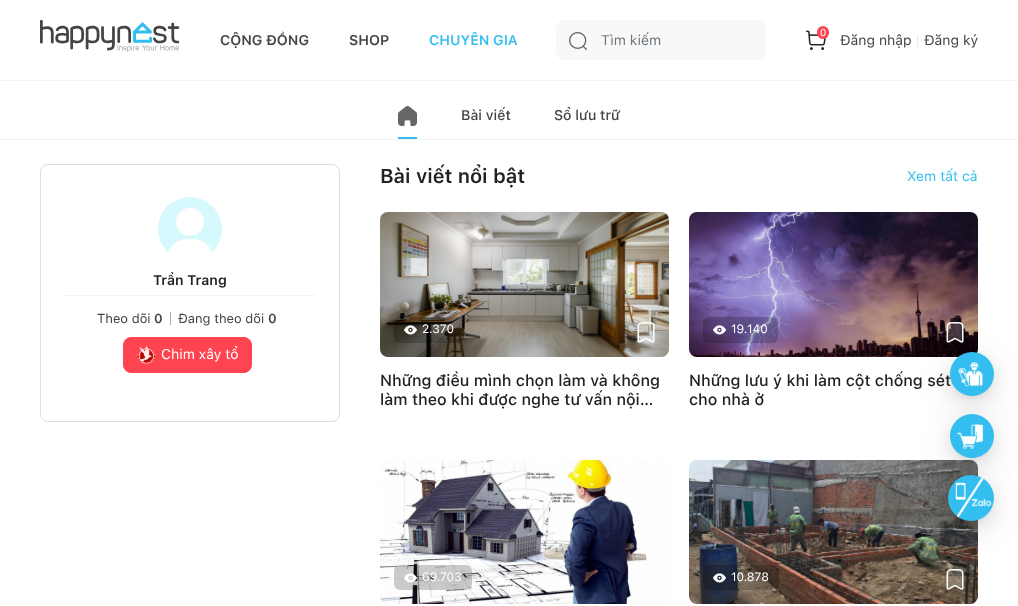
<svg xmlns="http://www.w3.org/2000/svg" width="1018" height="606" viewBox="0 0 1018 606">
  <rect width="100%" height="100%" fill="#fff"/>
  <path d="M0 80h1018v1H0z" fill="#f3f3f3"/>
  <image x="40" y="20" width="140" height="32" href="img/1.png"/>
  <rect x="556" y="20" width="210" height="40" rx="8" fill="#f8f8f8"/>
  <image x="569" y="32" width="18" height="18" href="img/2.png"/>
  <image x="806" y="30" width="20" height="20" href="img/3.png"/>
  <rect x="817" y="26" width="12" height="13" rx="6" fill="#ff4451"/>
  <path d="M917 35h1v12H917z" fill="#eaeaea"/>
  <path d="M0 139h1018v1H0z" fill="#f3f3f3"/>
  <image x="398" y="106" width="19" height="20" href="img/4.png"/>
  <path d="M398 137h19v2H398z" fill="#34beef"/>
  <rect x="40.5" y="164.5" width="299" height="257" rx="7.5" fill="none" stroke="#ddd"/>
  <image x="158" y="197" width="64" height="55" href="img/5.png"/>
  <path d="M65 295h250v1H65z" fill="#f3f3f3"/>
  <path d="M170 312h1v13H170z" fill="#aaa"/>
  <rect x="123.5" y="337.5" width="128" height="35" rx="7.5" fill="#ff4451" stroke="#ff4451"/>
  <image x="136" y="346" width="21" height="18" href="img/6.png"/>
  <rect x="380" y="212" width="289" height="145" rx="8" fill="#f2f2f2"/>
  <image x="380" y="212" width="289" height="145" href="img/7.png"/>
  <rect x="394" y="317" width="70" height="26" rx="6" fill="#00000033"/>
  <image x="404" y="325" width="13" height="10" href="img/8.png"/>
  <image x="637" y="322" width="18" height="21" href="img/9.png"/>
  <rect x="689" y="212" width="289" height="145" rx="8" fill="#f2f2f2"/>
  <image x="689" y="212" width="289" height="145" href="img/10.png"/>
  <rect x="703" y="317" width="75" height="26" rx="6" fill="#00000033"/>
  <image x="713" y="325" width="13" height="10" href="img/11.png"/>
  <image x="946" y="322" width="18" height="21" href="img/12.png"/>
  <rect x="380" y="460" width="289" height="144" rx="8" fill="#f2f2f2"/>
  <image x="380" y="460" width="289" height="144" href="img/13.png"/>
  <rect x="394" y="565" width="78" height="25" rx="6" fill="#00000033"/>
  <image x="404" y="573" width="13" height="10" href="img/14.png"/>
  <rect x="689" y="460" width="289" height="144" rx="8" fill="#f2f2f2"/>
  <image x="689" y="460" width="289" height="144" href="img/15.png"/>
  <rect x="703" y="565" width="76" height="25" rx="6" fill="#00000033"/>
  <image x="713" y="573" width="13" height="10" href="img/16.png"/>
  <image x="946" y="569" width="18" height="21" href="img/17.png"/>
  <rect x="942" y="353" width="60" height="60" rx="30" fill="#0000000d" filter="blur(14px)"/>
  <rect x="954" y="359" width="36" height="36" rx="18" fill="#0000001f" filter="blur(3px)"/>
  <rect x="950" y="358" width="44" height="44" rx="22" fill="#00000014" filter="blur(8px)"/>
  <rect x="954" y="421" width="36" height="36" rx="18" fill="#0000001f" filter="blur(3px)"/>
  <rect x="952" y="482" width="38" height="38" rx="19" fill="#0000001f" filter="blur(3px)"/>
  <g font-family="SF Pro Text" font-size="14" font-weight="600" fill="#444">
    <text x="220" y="45">CỘNG ĐỒNG</text>
    <text x="349" y="45">SHOP</text>
  </g>
  <text x="429" y="45" font-family="SF Pro Text" font-size="14" font-weight="600" fill="#34beef">CHUYÊN GIA</text>
  <text x="601" y="45" font-family="SF Pro Text" font-size="14" fill="#6c757d">Tìm kiếm</text>
  <text x="820" y="36" font-family="SF Pro Text" font-size="10" fill="#fff">0</text>
  <g font-family="SF Pro Text" font-size="14" fill="#444">
    <text x="840" y="45">Đăng nhập</text>
    <text x="924" y="45">Đăng ký</text>
  </g>
  <g font-family="SF Pro Text" font-size="14" font-weight="500" fill="#444">
    <text x="461" y="120">Bài viết</text>
    <text x="554" y="120">Sổ lưu trữ</text>
  </g>
  <text x="153" y="285" font-family="SF Pro Text" font-size="14" font-weight="600" fill="#222">Trần Trang</text>
  <text x="97" y="323" font-family="SF Pro Text" font-size="13" fill="#444">Theo dõi</text>
  <text x="154" y="323" font-family="SF Pro Text" font-size="13" font-weight="600" fill="#444">0</text>
  <text x="178" y="323" font-family="SF Pro Text" font-size="13" fill="#444">Đang theo dõi</text>
  <text x="268" y="323" font-family="SF Pro Text" font-size="13" font-weight="600" fill="#444">0</text>
  <text x="161" y="359" font-family="SF Pro Text" font-size="14" fill="#fff">Chim xây tổ</text>
  <text x="380" y="183" font-family="SF Pro Text" font-size="20" font-weight="600" fill="#222">Bài viết nổi bật</text>
  <text x="907" y="181" font-family="SF Pro Text" font-size="14" fill="#34beef">Xem tất cả</text>
  <text x="422" y="333" font-family="SF Pro Text" font-size="12" fill="#fff">2.370</text>
  <g font-family="SF Pro Text" font-size="16" font-weight="500" fill="#222">
    <text x="380" y="386">Những điều mình chọn làm và không</text>
    <text x="380" y="405">làm theo khi được nghe tư vấn nội…</text>
  </g>
  <text x="731" y="333" font-family="SF Pro Text" font-size="12" fill="#fff">19.140</text>
  <g font-family="SF Pro Text" font-size="16" font-weight="500" fill="#222">
    <text x="689" y="386">Những lưu ý khi làm cột chống sét</text>
    <text x="689" y="405">cho nhà ở</text>
  </g>
  <g font-family="SF Pro Text" font-size="12" fill="#fff">
    <text x="422" y="581">69.703</text>
    <text x="731" y="581">10.878</text>
  </g>
  <circle cx="972" cy="374" r="22" fill="#34beef"/>
  <image x="958" y="361" width="25" height="26" href="img/18.png"/>
  <rect x="942" y="415" width="60" height="60" rx="30" fill="#0000000d" filter="blur(14px)"/>
  <rect x="950" y="420" width="44" height="44" rx="22" fill="#00000014" filter="blur(8px)"/>
  <circle cx="972" cy="436" r="22" fill="#34beef"/>
  <image x="957" y="424" width="27" height="25" href="img/19.png"/>
  <rect x="940" y="476" width="62" height="62" rx="31" fill="#0000000d" filter="blur(14px)"/>
  <rect x="948" y="481" width="46" height="46" rx="23" fill="#00000014" filter="blur(8px)"/>
  <circle cx="971" cy="498" r="23" fill="#34beef"/>
  <image x="955" y="477" width="37" height="41" href="img/20.png"/>
</svg>
